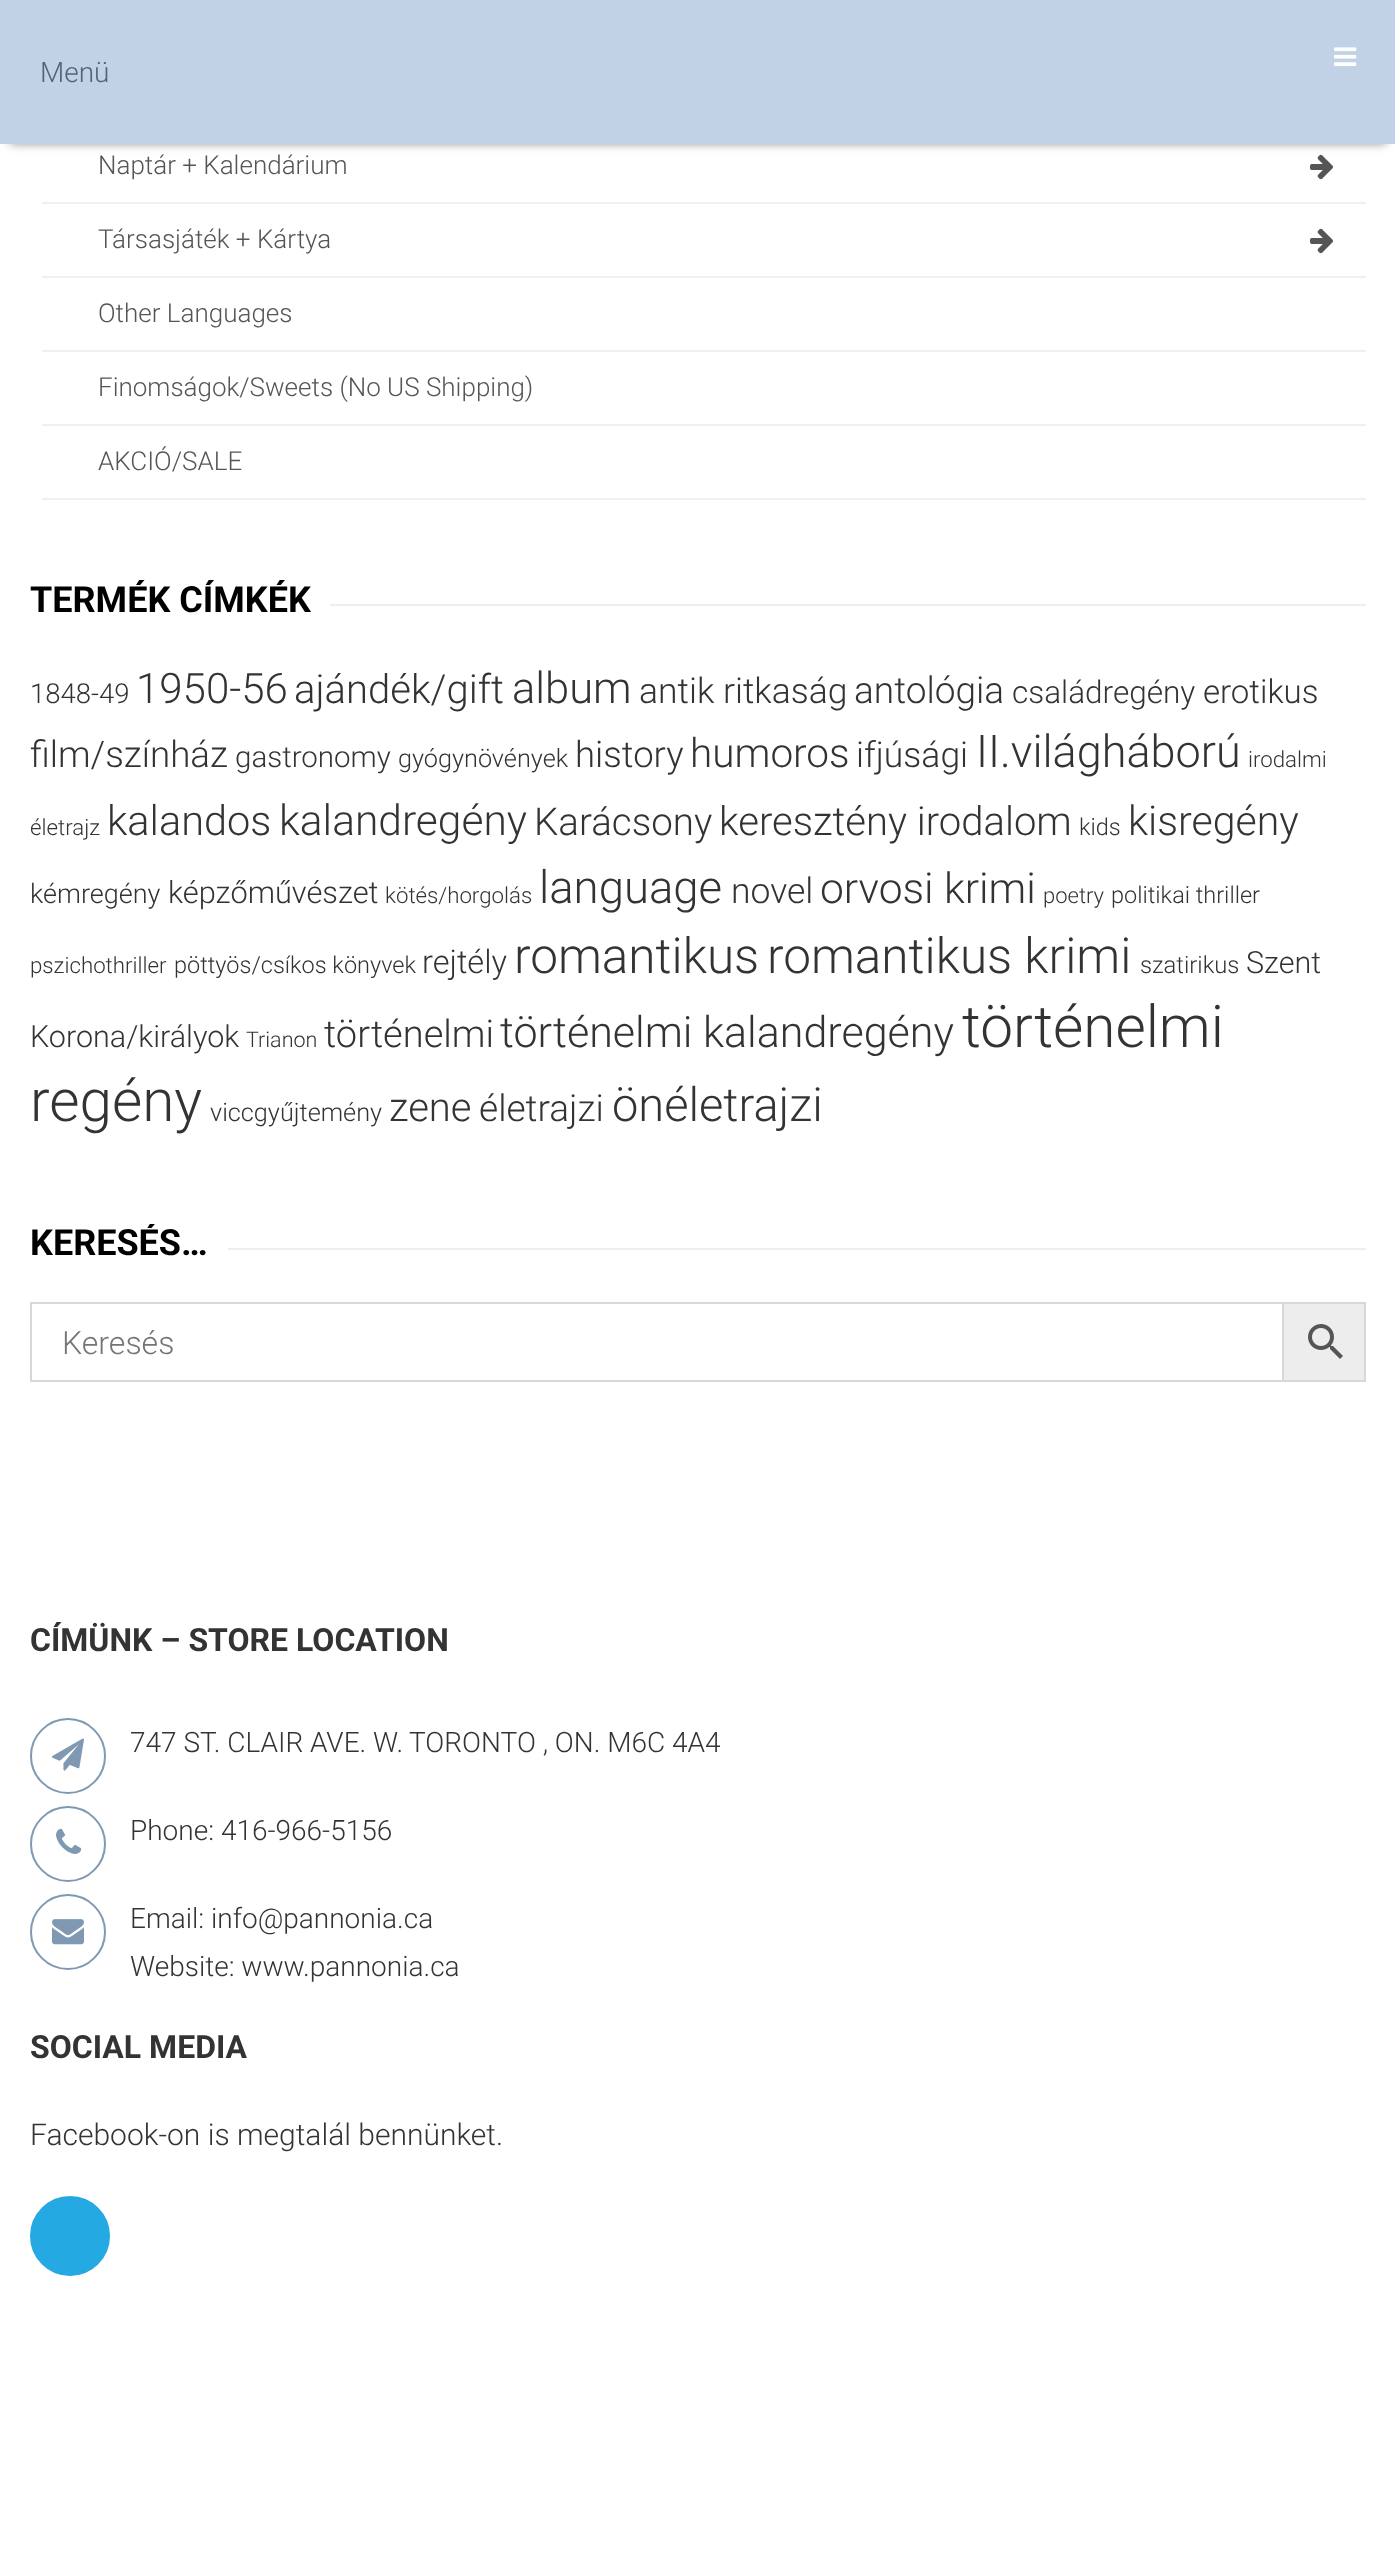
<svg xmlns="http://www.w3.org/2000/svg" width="1395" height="2556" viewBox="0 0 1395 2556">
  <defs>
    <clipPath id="clip1"><path d="M30 580h1336v40H30z"/></clipPath>
    <clipPath id="clip2"><path d="M30 1224h1336v38H30z"/></clipPath>
  </defs>
  <rect width="100%" height="100%" fill="#fff"/>
  <image x="1310" y="154" width="23" height="26" href="img/2.png"/>
  <path d="M10 20h1376v124H10z" fill="#00000066" filter="blur(5px)"/>
  <path d="M0 0h1395v144H0z" fill="#c1d2e7"/>
  <image x="1334" y="47" width="23" height="19" href="img/1.png"/>
  <path d="M42 202h1324v2H42z" fill="#f0f0f0"/>
  <path d="M42 276h1324v2H42z" fill="#f0f0f0"/>
  <image x="1310" y="228" width="23" height="26" href="img/2.png"/>
  <path d="M42 350h1324v2H42z" fill="#f0f0f0"/>
  <path d="M42 424h1324v2H42z" fill="#f0f0f0"/>
  <path d="M42 498h1324v2H42z" fill="#f0f0f0"/>
  <path d="M330 604h1036v2H330z" fill="#eee"/>
  <path d="M228 1248h1138v2H228z" fill="#eee"/>
  <path d="M1283 1303h82v78H1283z" fill="#ededed" stroke="#d8d8d8" stroke-width="2"/>
  <path d="M31 1303h1252v78H31z" fill="none" stroke="#d8d8d8" stroke-width="2"/>
  <image x="1308" y="1324" width="35" height="35" href="img/3.png"/>
  <circle cx="68" cy="1756" r="37" fill="none" stroke="#7f99b2" stroke-width="2"/>
  <image x="52" y="1738" width="32" height="33" href="img/4.png"/>
  <circle cx="68" cy="1844" r="37" fill="none" stroke="#7f99b2" stroke-width="2"/>
  <image x="56" y="1828" width="26" height="26" href="img/5.png"/>
  <circle cx="68" cy="1932" r="37" fill="none" stroke="#7f99b2" stroke-width="2"/>
  <image x="52" y="1919" width="32" height="26" href="img/6.png"/>
  <circle cx="70" cy="2236" r="43" fill="#24a9e2" stroke="#fff" stroke-width="6"/>
  <text x="40" y="82" font-family="Roboto" font-size="28" font-weight="300" fill="#516374">Menü</text>
  <g font-family="Roboto" font-size="26" font-weight="300" fill="#555">
    <text x="98" y="174">Naptár + Kalendárium</text>
    <text x="98" y="248">Társasjáték + Kártya</text>
    <text x="98" y="322">Other Languages</text>
    <text x="98" y="396">Finomságok/Sweets (No US Shipping)</text>
    <text x="98" y="470">AKCIÓ/SALE</text>
  </g>
  <g clip-path="url(#clip1)">
    <text x="30" y="612" font-family="Roboto" font-size="36" font-weight="bold" fill="#000">TERMÉK CÍMKÉK</text>
  </g>
  <text x="30" y="703" font-family="Roboto" font-size="27.5" font-weight="300" fill="#333">1848-49</text>
  <text x="136" y="703" font-family="Roboto" font-size="42" font-weight="300" fill="#333">1950-56</text>
  <text x="294" y="703" font-family="Roboto" font-size="40" font-weight="300" fill="#333">ajándék/gift</text>
  <text x="512" y="703" font-family="Roboto" font-size="43.5" font-weight="300" fill="#333">album</text>
  <text x="639" y="703" font-family="Roboto" font-size="35.5" font-weight="300" fill="#333">antik ritkaság</text>
  <text x="854" y="703" font-family="Roboto" font-size="37" font-weight="300" fill="#333">antológia</text>
  <text x="1012" y="703" font-family="Roboto" font-size="31.5" font-weight="300" fill="#333">családregény</text>
  <text x="1203" y="703" font-family="Roboto" font-size="33" font-weight="300" fill="#333">erotikus</text>
  <text x="30" y="767" font-family="Roboto" font-size="36.75" font-weight="300" fill="#333">film/színház</text>
  <text x="235" y="767" font-family="Roboto" font-size="29.5" font-weight="300" fill="#333">gastronomy</text>
  <text x="398" y="767" font-family="Roboto" font-size="25.25" font-weight="300" fill="#333">gyógynövények</text>
  <text x="575" y="767" font-family="Roboto" font-size="36.5" font-weight="300" fill="#333">history</text>
  <text x="690" y="767" font-family="Roboto" font-size="40.5" font-weight="300" fill="#333">humoros</text>
  <text x="856" y="767" font-family="Roboto" font-size="35.5" font-weight="300" fill="#333">ifjúsági</text>
  <text x="976" y="767" font-family="Roboto" font-size="45" font-weight="300" fill="#333">II.világháború</text>
  <g font-family="Roboto" font-size="22.25" font-weight="300" fill="#333">
    <text x="1248" y="767">irodalmi</text>
    <text x="30" y="835">életrajz</text>
  </g>
  <text x="107" y="835" font-family="Roboto" font-size="41.5" font-weight="300" fill="#333">kalandos</text>
  <text x="279" y="835" font-family="Roboto" font-size="42.5" font-weight="300" fill="#333">kalandregény</text>
  <text x="534" y="835" font-family="Roboto" font-size="38.5" font-weight="300" fill="#333">Karácsony</text>
  <text x="719" y="835" font-family="Roboto" font-size="40" font-weight="300" fill="#333">keresztény irodalom</text>
  <text x="1079" y="835" font-family="Roboto" font-size="23.5" font-weight="300" fill="#333">kids</text>
  <text x="1128" y="835" font-family="Roboto" font-size="41" font-weight="300" fill="#333">kisregény</text>
  <text x="30" y="903" font-family="Roboto" font-size="27" font-weight="300" fill="#333">kémregény</text>
  <text x="168" y="903" font-family="Roboto" font-size="30.75" font-weight="300" fill="#333">képzőművészet</text>
  <text x="385" y="903" font-family="Roboto" font-size="22.25" font-weight="300" fill="#333">kötés/horgolás</text>
  <text x="539" y="903" font-family="Roboto" font-size="45.5" font-weight="300" fill="#333">language</text>
  <text x="731" y="903" font-family="Roboto" font-size="35.5" font-weight="300" fill="#333">novel</text>
  <text x="820" y="903" font-family="Roboto" font-size="42.5" font-weight="300" fill="#333">orvosi krimi</text>
  <text x="1043" y="903" font-family="Roboto" font-size="22" font-weight="300" fill="#333">poetry</text>
  <text x="1111" y="903" font-family="Roboto" font-size="23.5" font-weight="300" fill="#333">politikai thriller</text>
  <text x="30" y="973" font-family="Roboto" font-size="22.25" font-weight="300" fill="#333">pszichothriller</text>
  <text x="174" y="973" font-family="Roboto" font-size="23.5" font-weight="300" fill="#333">pöttyös/csíkos könyvek</text>
  <text x="422" y="973" font-family="Roboto" font-size="32.5" font-weight="300" fill="#333">rejtély</text>
  <g font-family="Roboto" font-size="49.5" font-weight="300" fill="#333">
    <text x="514" y="973">romantikus</text>
    <text x="767" y="973">romantikus krimi</text>
  </g>
  <text x="1140" y="973" font-family="Roboto" font-size="23.75" font-weight="300" fill="#333">szatirikus</text>
  <g font-family="Roboto" font-size="30.5" font-weight="300" fill="#333">
    <text x="1246" y="973">Szent</text>
    <text x="30" y="1047">Korona/királyok</text>
  </g>
  <text x="246" y="1047" font-family="Roboto" font-size="21.5" font-weight="300" fill="#333">Trianon</text>
  <text x="324" y="1047" font-family="Roboto" font-size="38" font-weight="300" fill="#333">történelmi</text>
  <text x="500" y="1047" font-family="Roboto" font-size="43" font-weight="300" fill="#333">történelmi kalandregény</text>
  <g font-family="Roboto" font-size="58.5" font-weight="300" fill="#333">
    <text x="962" y="1047">történelmi</text>
    <text x="30" y="1121">regény</text>
  </g>
  <text x="210" y="1121" font-family="Roboto" font-size="25.25" font-weight="300" fill="#333">viccgyűjtemény</text>
  <text x="389" y="1121" font-family="Roboto" font-size="40" font-weight="300" fill="#333">zene</text>
  <text x="479" y="1121" font-family="Roboto" font-size="37" font-weight="300" fill="#333">életrajzi</text>
  <text x="612" y="1121" font-family="Roboto" font-size="47" font-weight="300" fill="#333">önéletrajzi</text>
  <g clip-path="url(#clip2)">
    <text x="30" y="1255" font-family="Roboto" font-size="36" font-weight="bold" fill="#000">KERESÉS…</text>
  </g>
  <text x="62" y="1354" font-family="Roboto" font-size="32" font-weight="300" fill="#757575">Keresés</text>
  <text x="30" y="1651" font-family="Roboto" font-size="32" font-weight="bold" fill="#333">CÍMÜNK – STORE LOCATION</text>
  <g font-family="Roboto" font-size="28" font-weight="300" fill="#333">
    <text x="130" y="1752">747 ST. CLAIR AVE. W.</text>
    <text x="409" y="1752">TORONTO , ON. M6C 4A4</text>
    <text x="130" y="1840">Phone: 416-966-5156</text>
    <text x="130" y="1928">Email: info@pannonia.ca</text>
    <text x="130" y="1976">Website: www.pannonia.ca</text>
  </g>
  <text x="30" y="2058" font-family="Roboto" font-size="32" font-weight="bold" fill="#333">SOCIAL MEDIA</text>
  <text x="30" y="2145" font-family="Roboto" font-size="30" font-weight="300" fill="#333">Facebook-on is megtalál bennünket.</text>
</svg>
